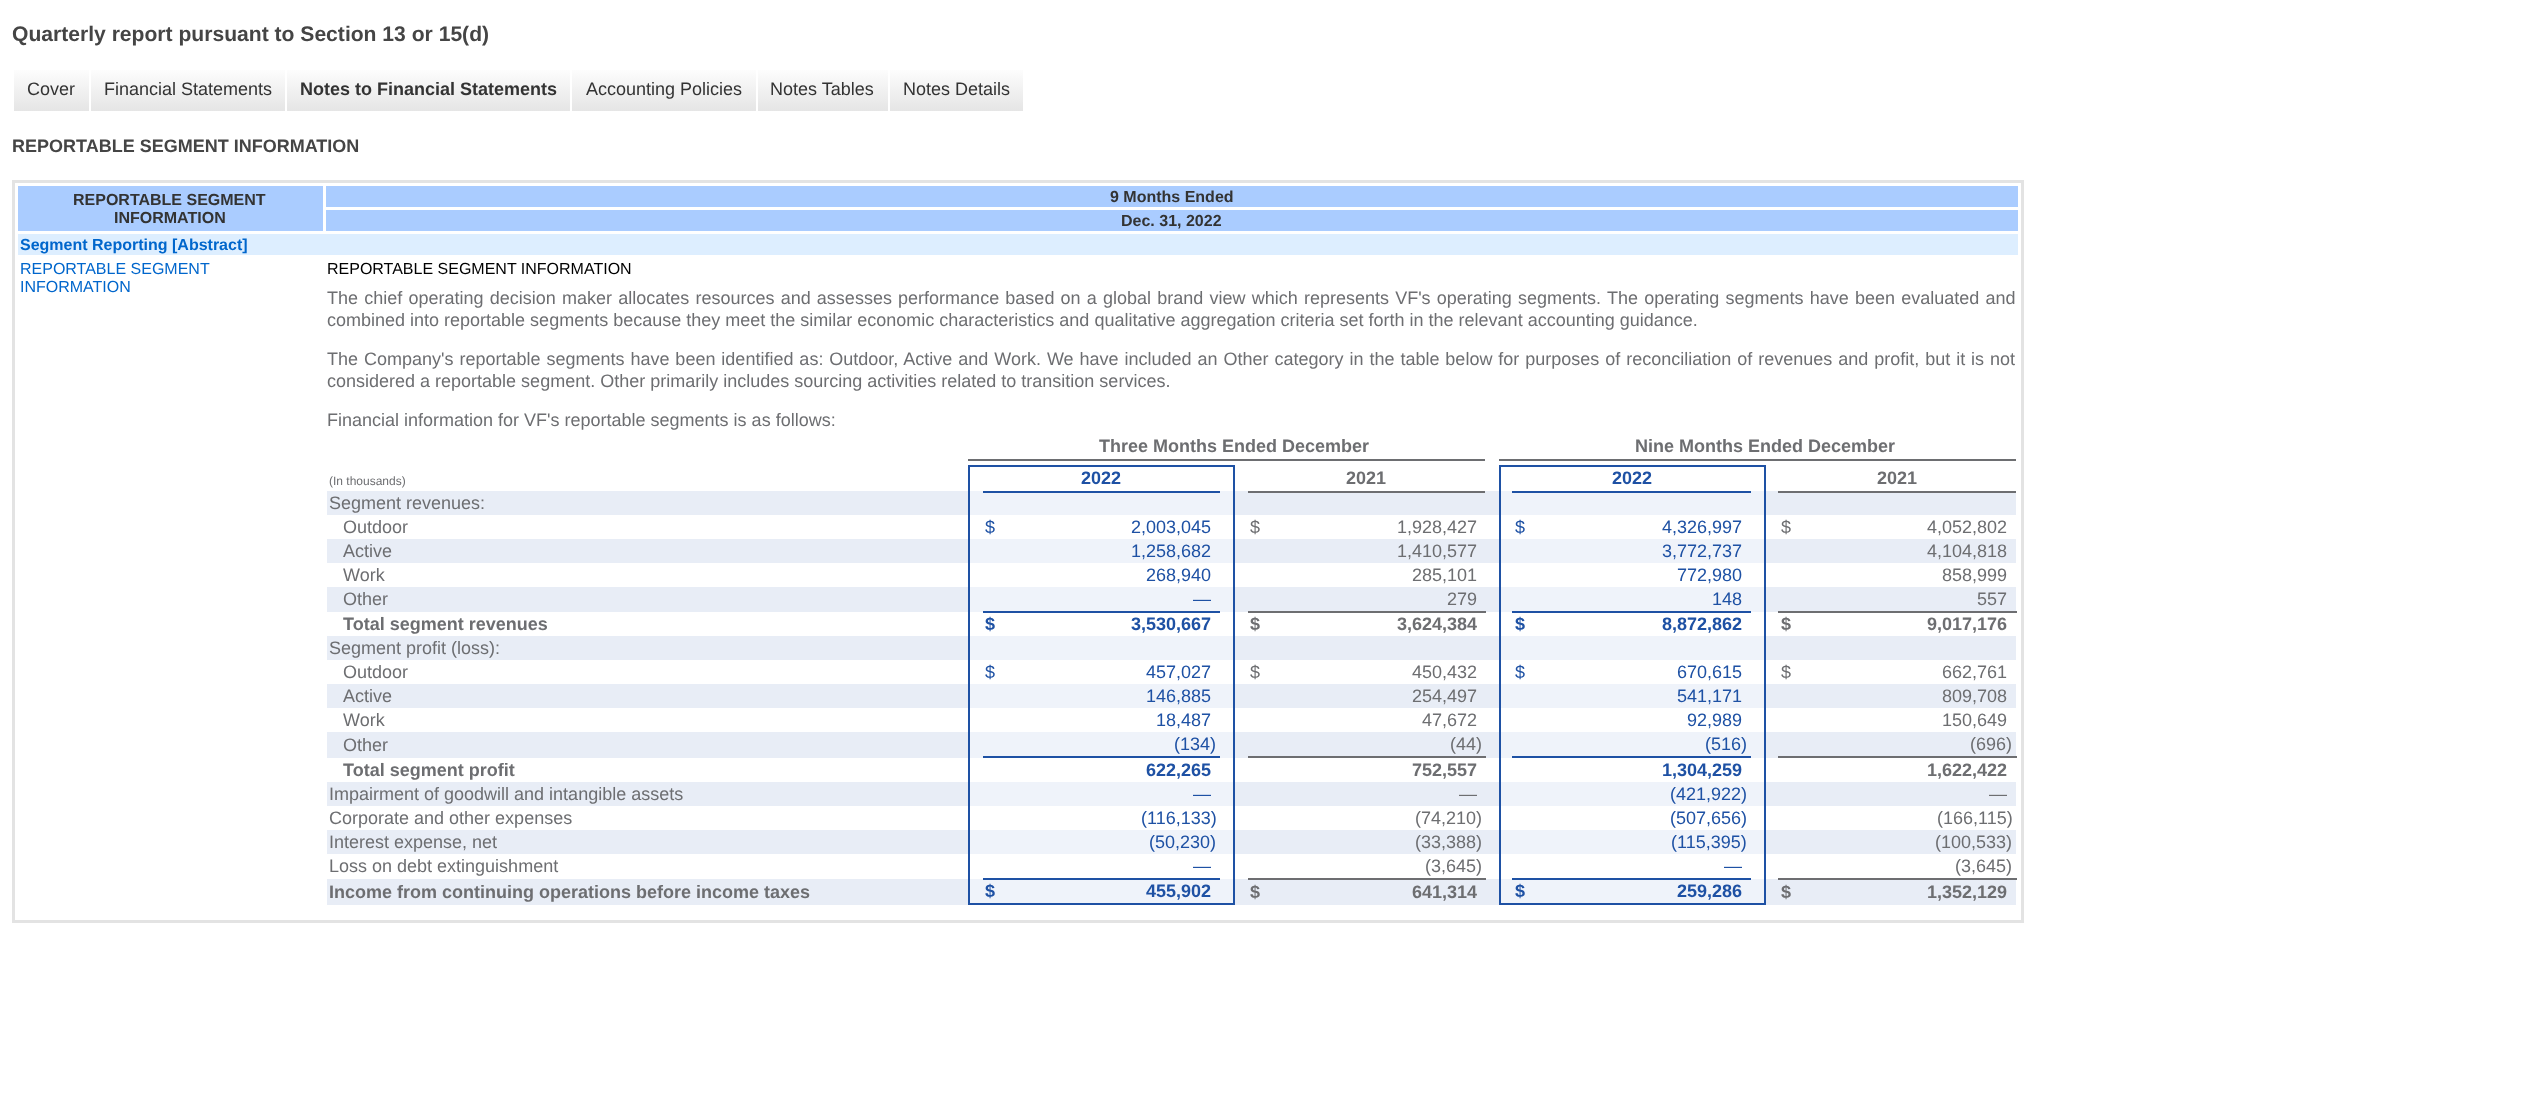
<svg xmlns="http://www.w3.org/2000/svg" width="2537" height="1116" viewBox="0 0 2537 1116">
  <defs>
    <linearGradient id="g1" gradientUnits="userSpaceOnUse" x1="51" y1="66" x2="51" y2="111"><stop offset="0" stop-color="#fff"/><stop offset="1" stop-color="#e5e5e5"/></linearGradient>
    <linearGradient id="g2" gradientUnits="userSpaceOnUse" x1="188" y1="66" x2="188" y2="111"><stop offset="0" stop-color="#fff"/><stop offset="1" stop-color="#e5e5e5"/></linearGradient>
    <linearGradient id="g3" gradientUnits="userSpaceOnUse" x1="428" y1="66" x2="428" y2="111"><stop offset="0" stop-color="#fff"/><stop offset="1" stop-color="#e5e5e5"/></linearGradient>
    <linearGradient id="g4" gradientUnits="userSpaceOnUse" x1="664" y1="66" x2="664" y2="111"><stop offset="0" stop-color="#fff"/><stop offset="1" stop-color="#e5e5e5"/></linearGradient>
    <linearGradient id="g5" gradientUnits="userSpaceOnUse" x1="823" y1="66" x2="823" y2="111"><stop offset="0" stop-color="#fff"/><stop offset="1" stop-color="#e5e5e5"/></linearGradient>
    <linearGradient id="g6" gradientUnits="userSpaceOnUse" x1="956" y1="66" x2="956" y2="111"><stop offset="0" stop-color="#fff"/><stop offset="1" stop-color="#e5e5e5"/></linearGradient>
  </defs>
  <rect width="100%" height="100%" fill="#fff"/>
  <path d="M14 70h75v41H14z" fill="url(#g1)"/>
  <path d="M91 70h194v41H91z" fill="url(#g2)"/>
  <path d="M287 70h283v41H287z" fill="url(#g3)"/>
  <path d="M572 70h184v41H572z" fill="url(#g4)"/>
  <path d="M758 70h130v41H758z" fill="url(#g5)"/>
  <path d="M890 70h133v41H890z" fill="url(#g6)"/>
  <path d="M13.5 181.5h2009v740H13.5z" fill="none" stroke="#e3e3e3" stroke-width="3"/>
  <path d="M18 186h305v45H18z" fill="#acf"/>
  <path d="M326 186h1692v21H326z" fill="#acf"/>
  <path d="M326 210h1692v21H326z" fill="#acf"/>
  <path d="M18 234h2000v21H18z" fill="#def"/>
  <path d="M968 459h517v2H968z" fill="#6d6e71"/>
  <path d="M1499 459h517v2H1499z" fill="#6d6e71"/>
  <path d="M1233 465h2v440H1233z" fill="#1e51a4"/>
  <path d="M968 465h267v2H968z" fill="#1e51a4"/>
  <path d="M1217 879h3v26H1217z" fill="#eff3fa"/>
  <path d="M968 903h267v2H968z" fill="#1e51a4"/>
  <path d="M968 491h2v414H968z" fill="#1e51a4"/>
  <path d="M968 465h2v27H968z" fill="#1e51a4"/>
  <path d="M1764 465h2v440H1764z" fill="#1e51a4"/>
  <path d="M1499 465h267v2H1499z" fill="#1e51a4"/>
  <path d="M1748 879h3v26H1748z" fill="#eff3fa"/>
  <path d="M1499 903h267v2H1499z" fill="#1e51a4"/>
  <path d="M1499 491h2v414H1499z" fill="#1e51a4"/>
  <path d="M1499 465h2v27H1499z" fill="#1e51a4"/>
  <path d="M327 491h641v24H327z" fill="#e8edf6"/>
  <path d="M970 491h13v24H970z" fill="#eff3fa"/>
  <path d="M983 493h237v22H983z" fill="#eff3fa"/>
  <path d="M983 491h237v2H983z" fill="#1e51a4"/>
  <path d="M1220 491h13v24H1220z" fill="#eff3fa"/>
  <path d="M1235 491h13v24H1235z" fill="#e8edf6"/>
  <path d="M1248 493h237v22H1248z" fill="#e8edf6"/>
  <path d="M1248 491h237v2H1248z" fill="#6d6e71"/>
  <path d="M1485 491h14v24H1485z" fill="#e8edf6"/>
  <path d="M1501 491h13v24H1501z" fill="#eff3fa"/>
  <path d="M1514 493h237v22H1514z" fill="#eff3fa"/>
  <path d="M1512 491h239v2H1512z" fill="#1e51a4"/>
  <path d="M1751 491h13v24H1751z" fill="#eff3fa"/>
  <path d="M1766 491h13v24H1766z" fill="#e8edf6"/>
  <path d="M1779 493h237v22H1779z" fill="#e8edf6"/>
  <path d="M1778 491h238v2H1778z" fill="#6d6e71"/>
  <path d="M327 539h641v24H327z" fill="#e8edf6"/>
  <path d="M970 539h263v24H970z" fill="#eff3fa"/>
  <path d="M1235 539h264v24H1235z" fill="#e8edf6"/>
  <path d="M1501 539h263v24H1501z" fill="#eff3fa"/>
  <path d="M1766 539h250v24H1766z" fill="#e8edf6"/>
  <path d="M327 587h641v25H327z" fill="#e8edf6"/>
  <path d="M970 587h13v25H970z" fill="#eff3fa"/>
  <path d="M983 587h234v24H983z" fill="#eff3fa"/>
  <path d="M1217 587h16v25H1217z" fill="#eff3fa"/>
  <path d="M1235 587h13v25H1235z" fill="#e8edf6"/>
  <path d="M1248 587h234v24H1248z" fill="#e8edf6"/>
  <path d="M1482 587h17v25H1482z" fill="#e8edf6"/>
  <path d="M1501 587h13v25H1501z" fill="#eff3fa"/>
  <path d="M1514 587h234v24H1514z" fill="#eff3fa"/>
  <path d="M1748 587h16v25H1748z" fill="#eff3fa"/>
  <path d="M1766 587h13v25H1766z" fill="#e8edf6"/>
  <path d="M1779 587h234v24H1779z" fill="#e8edf6"/>
  <path d="M2013 587h3v25H2013z" fill="#e8edf6"/>
  <path d="M983 611h237v2H983z" fill="#1e51a4"/>
  <path d="M1248 611h238v2H1248z" fill="#6d6e71"/>
  <path d="M1512 611h239v2H1512z" fill="#1e51a4"/>
  <path d="M1778 611h239v2H1778z" fill="#6d6e71"/>
  <path d="M327 636h641v24H327z" fill="#e8edf6"/>
  <path d="M970 636h263v24H970z" fill="#eff3fa"/>
  <path d="M1235 636h264v24H1235z" fill="#e8edf6"/>
  <path d="M1501 636h263v24H1501z" fill="#eff3fa"/>
  <path d="M1766 636h250v24H1766z" fill="#e8edf6"/>
  <path d="M327 684h641v24H327z" fill="#e8edf6"/>
  <path d="M970 684h263v24H970z" fill="#eff3fa"/>
  <path d="M1235 684h264v24H1235z" fill="#e8edf6"/>
  <path d="M1501 684h263v24H1501z" fill="#eff3fa"/>
  <path d="M1766 684h250v24H1766z" fill="#e8edf6"/>
  <path d="M327 732h641v26H327z" fill="#e8edf6"/>
  <path d="M970 732h13v26H970z" fill="#eff3fa"/>
  <path d="M983 732h234v24H983z" fill="#eff3fa"/>
  <path d="M1217 732h16v26H1217z" fill="#eff3fa"/>
  <path d="M1235 732h13v26H1235z" fill="#e8edf6"/>
  <path d="M1248 732h234v24H1248z" fill="#e8edf6"/>
  <path d="M1482 732h17v26H1482z" fill="#e8edf6"/>
  <path d="M1501 732h13v26H1501z" fill="#eff3fa"/>
  <path d="M1514 732h234v24H1514z" fill="#eff3fa"/>
  <path d="M1748 732h16v26H1748z" fill="#eff3fa"/>
  <path d="M1766 732h13v26H1766z" fill="#e8edf6"/>
  <path d="M1779 732h234v24H1779z" fill="#e8edf6"/>
  <path d="M2013 732h3v26H2013z" fill="#e8edf6"/>
  <path d="M983 756h237v2H983z" fill="#1e51a4"/>
  <path d="M1248 756h238v2H1248z" fill="#6d6e71"/>
  <path d="M1512 756h239v2H1512z" fill="#1e51a4"/>
  <path d="M1778 756h239v2H1778z" fill="#6d6e71"/>
  <path d="M327 782h641v24H327z" fill="#e8edf6"/>
  <path d="M970 782h263v24H970z" fill="#eff3fa"/>
  <path d="M1235 782h264v24H1235z" fill="#e8edf6"/>
  <path d="M1501 782h263v24H1501z" fill="#eff3fa"/>
  <path d="M1766 782h250v24H1766z" fill="#e8edf6"/>
  <path d="M970 830h263v24H970z" fill="#eff3fa"/>
  <path d="M1235 830h264v24H1235z" fill="#e8edf6"/>
  <path d="M1501 830h263v24H1501z" fill="#eff3fa"/>
  <path d="M1766 830h250v24H1766z" fill="#e8edf6"/>
  <path d="M327 830h641v24H327z" fill="#e8edf6"/>
  <path d="M970 879h13v24H970z" fill="#eff3fa"/>
  <path d="M983 878h237v2H983z" fill="#1e51a4"/>
  <path d="M1235 879h13v26H1235z" fill="#e8edf6"/>
  <path d="M1482 879h17v26H1482z" fill="#e8edf6"/>
  <path d="M1248 878h238v2H1248z" fill="#6d6e71"/>
  <path d="M1501 879h13v24H1501z" fill="#eff3fa"/>
  <path d="M1512 878h239v2H1512z" fill="#1e51a4"/>
  <path d="M1766 879h13v26H1766z" fill="#e8edf6"/>
  <path d="M2013 879h3v26H2013z" fill="#e8edf6"/>
  <path d="M1778 878h239v2H1778z" fill="#6d6e71"/>
  <path d="M1220 879h13v24H1220z" fill="#eff3fa"/>
  <path d="M1751 879h13v24H1751z" fill="#eff3fa"/>
  <path d="M327 879h641v26H327z" fill="#e8edf6"/>
  <path d="M983 880h234v23H983z" fill="#eff3fa"/>
  <path d="M1248 880h234v25H1248z" fill="#e8edf6"/>
  <path d="M1514 880h234v23H1514z" fill="#eff3fa"/>
  <path d="M1779 880h234v25H1779z" fill="#e8edf6"/>
  <text x="12" y="41" font-family="Liberation Sans" font-size="21.1" font-weight="bold" fill="#454545">Quarterly report pursuant to Section 13 or 15(d)</text>
  <g font-family="Liberation Sans" font-size="18" fill="#333">
    <text x="27" y="95">Cover</text>
    <text x="104" y="95">Financial Statements</text>
  </g>
  <text x="300" y="95" font-family="Liberation Sans" font-size="18" font-weight="bold" fill="#333">Notes to Financial Statements</text>
  <g font-family="Liberation Sans" font-size="18" fill="#333">
    <text x="586" y="95">Accounting Policies</text>
    <text x="770" y="95">Notes Tables</text>
    <text x="903" y="95">Notes Details</text>
  </g>
  <text x="12" y="152" font-family="Liberation Sans" font-size="18" font-weight="bold" fill="#454545">REPORTABLE SEGMENT INFORMATION</text>
  <g font-family="Liberation Sans" font-size="16" font-weight="bold" fill="#333">
    <text x="73" y="205">REPORTABLE SEGMENT</text>
    <text x="114" y="223">INFORMATION</text>
    <text x="1110" y="202">9 Months Ended</text>
    <text x="1121" y="226">Dec. 31, 2022</text>
  </g>
  <text x="20" y="250" font-family="Liberation Sans" font-size="16" font-weight="bold" fill="#06c">Segment Reporting [Abstract]</text>
  <g font-family="Liberation Sans" font-size="16" fill="#06c">
    <text x="20" y="274">REPORTABLE SEGMENT</text>
    <text x="20" y="292">INFORMATION</text>
  </g>
  <text x="327" y="274" font-family="Liberation Sans" font-size="16" fill="#000">REPORTABLE SEGMENT INFORMATION</text>
  <g font-family="Liberation Sans" font-size="18" fill="#6d6e71">
    <text x="327" y="304" word-spacing="1.2">The chief operating decision maker allocates resources and assesses performance based on a global brand view which represents VF's operating segments. The operating segments have been evaluated and</text>
    <text x="327" y="326">combined into reportable segments because they meet the similar economic characteristics and qualitative aggregation criteria set forth in the relevant accounting guidance.</text>
    <text x="327" y="365" word-spacing="0.95">The Company's reportable segments have been identified as: Outdoor, Active and Work. We have included an Other category in the table below for purposes of reconciliation of revenues and profit, but it is not</text>
    <text x="327" y="387">considered a reportable segment. Other primarily includes sourcing activities related to transition services.</text>
    <text x="327" y="426">Financial information for VF's reportable segments is as follows:</text>
  </g>
  <g font-family="Liberation Sans" font-size="18" font-weight="bold" fill="#6d6e71">
    <text x="1099" y="452">Three Months Ended December</text>
    <text x="1635" y="452">Nine Months Ended December</text>
  </g>
  <text x="329" y="485" font-family="Liberation Sans" font-size="12" fill="#6d6e71">(In thousands)</text>
  <text x="1081" y="484" font-family="Liberation Sans" font-size="18" font-weight="bold" fill="#1e51a4">2022</text>
  <text x="1346" y="484" font-family="Liberation Sans" font-size="18" font-weight="bold" fill="#6d6e71">2021</text>
  <text x="1612" y="484" font-family="Liberation Sans" font-size="18" font-weight="bold" fill="#1e51a4">2022</text>
  <text x="1877" y="484" font-family="Liberation Sans" font-size="18" font-weight="bold" fill="#6d6e71">2021</text>
  <g font-family="Liberation Sans" font-size="18" fill="#6d6e71">
    <text x="329" y="509">Segment revenues:</text>
    <text x="343" y="533">Outdoor</text>
  </g>
  <g font-family="Liberation Sans" font-size="18" fill="#1e51a4">
    <text x="985" y="533">$</text>
    <text x="1131" y="533">2,003,045</text>
  </g>
  <g font-family="Liberation Sans" font-size="18" fill="#6d6e71">
    <text x="1250" y="533">$</text>
    <text x="1397" y="533">1,928,427</text>
  </g>
  <g font-family="Liberation Sans" font-size="18" fill="#1e51a4">
    <text x="1515" y="533">$</text>
    <text x="1662" y="533">4,326,997</text>
  </g>
  <g font-family="Liberation Sans" font-size="18" fill="#6d6e71">
    <text x="1781" y="533">$</text>
    <text x="1927" y="533">4,052,802</text>
    <text x="343" y="557">Active</text>
  </g>
  <text x="1131" y="557" font-family="Liberation Sans" font-size="18" fill="#1e51a4">1,258,682</text>
  <text x="1397" y="557" font-family="Liberation Sans" font-size="18" fill="#6d6e71">1,410,577</text>
  <text x="1662" y="557" font-family="Liberation Sans" font-size="18" fill="#1e51a4">3,772,737</text>
  <g font-family="Liberation Sans" font-size="18" fill="#6d6e71">
    <text x="1927" y="557">4,104,818</text>
    <text x="343" y="581">Work</text>
  </g>
  <text x="1146" y="581" font-family="Liberation Sans" font-size="18" fill="#1e51a4">268,940</text>
  <text x="1412" y="581" font-family="Liberation Sans" font-size="18" fill="#6d6e71">285,101</text>
  <text x="1677" y="581" font-family="Liberation Sans" font-size="18" fill="#1e51a4">772,980</text>
  <g font-family="Liberation Sans" font-size="18" fill="#6d6e71">
    <text x="1942" y="581">858,999</text>
    <text x="343" y="605">Other</text>
  </g>
  <text x="1193" y="605" font-family="Liberation Sans" font-size="18" fill="#1e51a4">—</text>
  <text x="1447" y="605" font-family="Liberation Sans" font-size="18" fill="#6d6e71">279</text>
  <text x="1712" y="605" font-family="Liberation Sans" font-size="18" fill="#1e51a4">148</text>
  <text x="1977" y="605" font-family="Liberation Sans" font-size="18" fill="#6d6e71">557</text>
  <text x="343" y="630" font-family="Liberation Sans" font-size="18" font-weight="bold" fill="#6d6e71">Total segment revenues</text>
  <g font-family="Liberation Sans" font-size="18" font-weight="bold" fill="#1e51a4">
    <text x="985" y="630">$</text>
    <text x="1131" y="630">3,530,667</text>
  </g>
  <g font-family="Liberation Sans" font-size="18" font-weight="bold" fill="#6d6e71">
    <text x="1250" y="630">$</text>
    <text x="1397" y="630">3,624,384</text>
  </g>
  <g font-family="Liberation Sans" font-size="18" font-weight="bold" fill="#1e51a4">
    <text x="1515" y="630">$</text>
    <text x="1662" y="630">8,872,862</text>
  </g>
  <g font-family="Liberation Sans" font-size="18" font-weight="bold" fill="#6d6e71">
    <text x="1781" y="630">$</text>
    <text x="1927" y="630">9,017,176</text>
  </g>
  <g font-family="Liberation Sans" font-size="18" fill="#6d6e71">
    <text x="329" y="654">Segment profit (loss):</text>
    <text x="343" y="678">Outdoor</text>
  </g>
  <g font-family="Liberation Sans" font-size="18" fill="#1e51a4">
    <text x="985" y="678">$</text>
    <text x="1146" y="678">457,027</text>
  </g>
  <g font-family="Liberation Sans" font-size="18" fill="#6d6e71">
    <text x="1250" y="678">$</text>
    <text x="1412" y="678">450,432</text>
  </g>
  <g font-family="Liberation Sans" font-size="18" fill="#1e51a4">
    <text x="1515" y="678">$</text>
    <text x="1677" y="678">670,615</text>
  </g>
  <g font-family="Liberation Sans" font-size="18" fill="#6d6e71">
    <text x="1781" y="678">$</text>
    <text x="1942" y="678">662,761</text>
    <text x="343" y="702">Active</text>
  </g>
  <text x="1146" y="702" font-family="Liberation Sans" font-size="18" fill="#1e51a4">146,885</text>
  <text x="1412" y="702" font-family="Liberation Sans" font-size="18" fill="#6d6e71">254,497</text>
  <text x="1677" y="702" font-family="Liberation Sans" font-size="18" fill="#1e51a4">541,171</text>
  <g font-family="Liberation Sans" font-size="18" fill="#6d6e71">
    <text x="1942" y="702">809,708</text>
    <text x="343" y="726">Work</text>
  </g>
  <text x="1156" y="726" font-family="Liberation Sans" font-size="18" fill="#1e51a4">18,487</text>
  <text x="1422" y="726" font-family="Liberation Sans" font-size="18" fill="#6d6e71">47,672</text>
  <text x="1687" y="726" font-family="Liberation Sans" font-size="18" fill="#1e51a4">92,989</text>
  <g font-family="Liberation Sans" font-size="18" fill="#6d6e71">
    <text x="1942" y="726">150,649</text>
    <text x="343" y="751">Other</text>
  </g>
  <text x="1174" y="750" font-family="Liberation Sans" font-size="18" fill="#1e51a4">(134)</text>
  <text x="1450" y="750" font-family="Liberation Sans" font-size="18" fill="#6d6e71">(44)</text>
  <text x="1705" y="750" font-family="Liberation Sans" font-size="18" fill="#1e51a4">(516)</text>
  <text x="1970" y="750" font-family="Liberation Sans" font-size="18" fill="#6d6e71">(696)</text>
  <text x="343" y="776" font-family="Liberation Sans" font-size="18" font-weight="bold" fill="#6d6e71">Total segment profit</text>
  <text x="1146" y="776" font-family="Liberation Sans" font-size="18" font-weight="bold" fill="#1e51a4">622,265</text>
  <text x="1412" y="776" font-family="Liberation Sans" font-size="18" font-weight="bold" fill="#6d6e71">752,557</text>
  <text x="1662" y="776" font-family="Liberation Sans" font-size="18" font-weight="bold" fill="#1e51a4">1,304,259</text>
  <text x="1927" y="776" font-family="Liberation Sans" font-size="18" font-weight="bold" fill="#6d6e71">1,622,422</text>
  <text x="329" y="800" font-family="Liberation Sans" font-size="18" fill="#6d6e71">Impairment of goodwill and intangible assets</text>
  <text x="1193" y="800" font-family="Liberation Sans" font-size="18" fill="#1e51a4">—</text>
  <text x="1459" y="800" font-family="Liberation Sans" font-size="18" fill="#6d6e71">—</text>
  <text x="1670" y="800" font-family="Liberation Sans" font-size="18" fill="#1e51a4">(421,922)</text>
  <g font-family="Liberation Sans" font-size="18" fill="#6d6e71">
    <text x="1989" y="800">—</text>
    <text x="329" y="824">Corporate and other expenses</text>
  </g>
  <text x="1141" y="824" font-family="Liberation Sans" font-size="18" fill="#1e51a4">(116,133)</text>
  <text x="1415" y="824" font-family="Liberation Sans" font-size="18" fill="#6d6e71">(74,210)</text>
  <text x="1670" y="824" font-family="Liberation Sans" font-size="18" fill="#1e51a4">(507,656)</text>
  <g font-family="Liberation Sans" font-size="18" fill="#6d6e71">
    <text x="1937" y="824">(166,115)</text>
    <text x="329" y="848">Interest expense, net</text>
  </g>
  <text x="1149" y="848" font-family="Liberation Sans" font-size="18" fill="#1e51a4">(50,230)</text>
  <text x="1415" y="848" font-family="Liberation Sans" font-size="18" fill="#6d6e71">(33,388)</text>
  <text x="1671" y="848" font-family="Liberation Sans" font-size="18" fill="#1e51a4">(115,395)</text>
  <g font-family="Liberation Sans" font-size="18" fill="#6d6e71">
    <text x="1935" y="848">(100,533)</text>
    <text x="329" y="872">Loss on debt extinguishment</text>
  </g>
  <text x="1193" y="872" font-family="Liberation Sans" font-size="18" fill="#1e51a4">—</text>
  <text x="1425" y="872" font-family="Liberation Sans" font-size="18" fill="#6d6e71">(3,645)</text>
  <text x="1724" y="872" font-family="Liberation Sans" font-size="18" fill="#1e51a4">—</text>
  <text x="1955" y="872" font-family="Liberation Sans" font-size="18" fill="#6d6e71">(3,645)</text>
  <text x="329" y="898" font-family="Liberation Sans" font-size="18" font-weight="bold" fill="#6d6e71">Income from continuing operations before income taxes</text>
  <g font-family="Liberation Sans" font-size="18" font-weight="bold" fill="#1e51a4">
    <text x="985" y="897">$</text>
    <text x="1146" y="897">455,902</text>
  </g>
  <g font-family="Liberation Sans" font-size="18" font-weight="bold" fill="#6d6e71">
    <text x="1250" y="898">$</text>
    <text x="1412" y="898">641,314</text>
  </g>
  <g font-family="Liberation Sans" font-size="18" font-weight="bold" fill="#1e51a4">
    <text x="1515" y="897">$</text>
    <text x="1677" y="897">259,286</text>
  </g>
  <g font-family="Liberation Sans" font-size="18" font-weight="bold" fill="#6d6e71">
    <text x="1781" y="898">$</text>
    <text x="1927" y="898">1,352,129</text>
  </g>
</svg>
